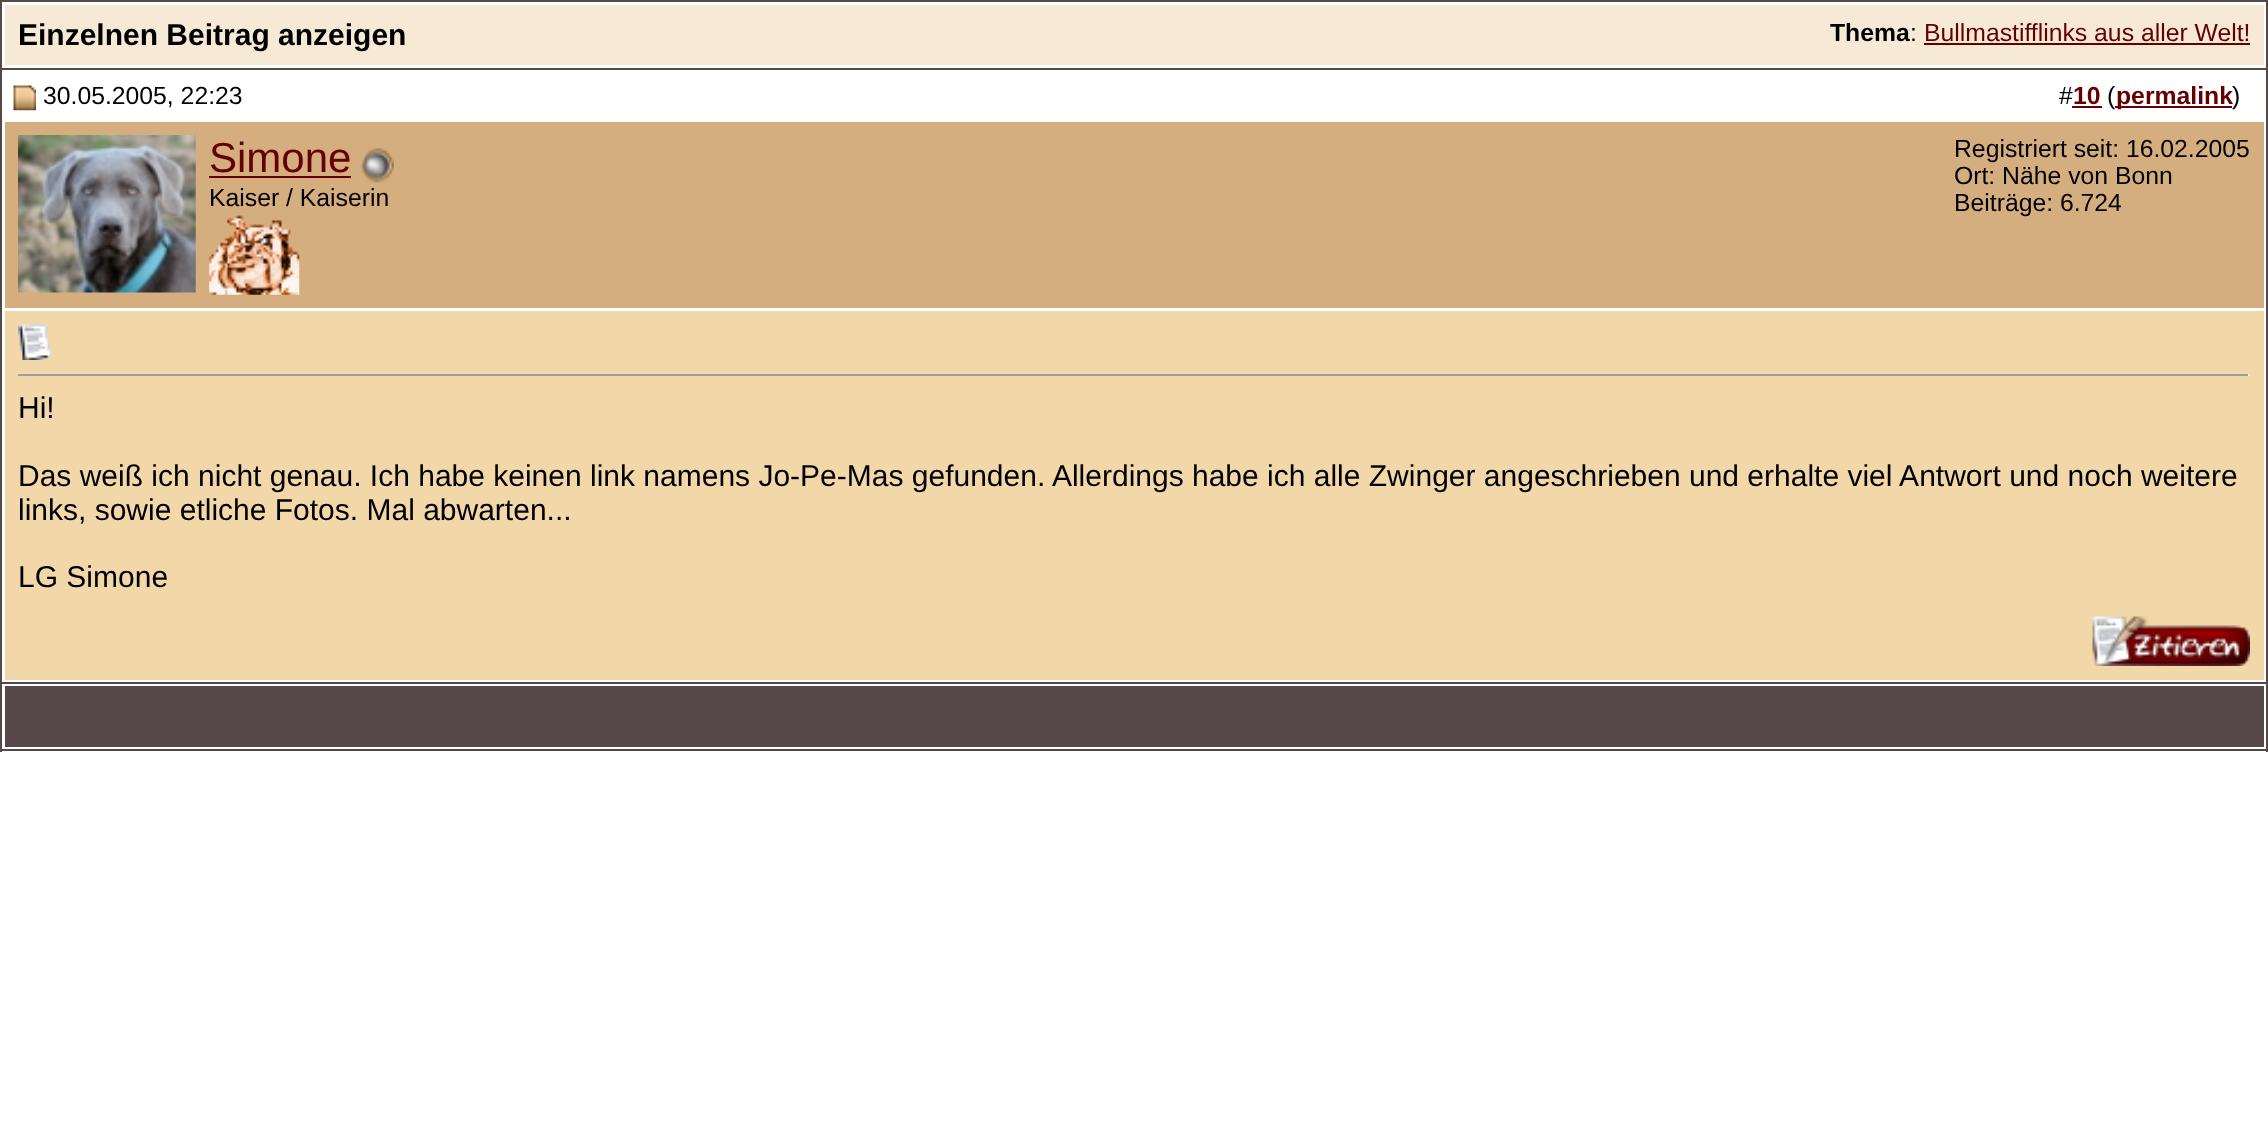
<svg xmlns="http://www.w3.org/2000/svg" width="2268" height="1131" viewBox="0 0 2268 1131">
  <rect width="100%" height="100%" fill="#fff"/>
  <path d="M0 0h2268v2H0z" fill="#564848"/>
  <path d="M2266 0h2v68H2266z" fill="#564848"/>
  <path d="M0 0h2v68H0z" fill="#564848"/>
  <path d="M5 5h2259v60H5z" fill="#f6ead6"/>
  <path d="M1924 43h326v2H1924z" fill="#600"/>
  <path d="M1 69h2266v614H1z" fill="none" stroke="#564848" stroke-width="2"/>
  <image x="13" y="85" width="23" height="26" href="img/1.png"/>
  <path d="M2072 106h30v2H2072z" fill="#600"/>
  <path d="M5 122h2259v186H5z" fill="#d4ae7e"/>
  <image x="18" y="135" width="178" height="158" href="img/2.png"/>
  <path d="M209 176h142v2H209z" fill="#600"/>
  <image x="360" y="148" width="34" height="35" href="img/3.png"/>
  <image x="209" y="215" width="91" height="80" href="img/4.png"/>
  <path d="M5 311h2259v369H5z" fill="#f2d7a8"/>
  <image x="18" y="324" width="35" height="36" href="img/5.png"/>
  <path d="M18 374h2232v2H18z" fill="#9f9f9f"/>
  <path d="M2248 374h2v2H2248z" fill="#eee"/>
  <image x="2092" y="616" width="158" height="50" href="img/6.png"/>
  <path d="M2266 684h2v68H2266z" fill="#564848"/>
  <path d="M0 749h2268v2H0z" fill="#564848"/>
  <path d="M0 684h2v68H0z" fill="#564848"/>
  <path d="M5 686h2259v61H5z" fill="#564848"/>
  <text x="18" y="45" font-family="Liberation Sans" font-size="30" font-weight="bold" fill="#000">Einzelnen Beitrag anzeigen</text>
  <text x="1830" y="41" font-family="Liberation Sans" font-size="24.75" font-weight="bold" fill="#000">Thema</text>
  <text x="1910" y="41" font-family="Liberation Sans" font-size="24.75" fill="#000">:</text>
  <text x="1924" y="41" font-family="Liberation Sans" font-size="24.75" fill="#600">Bullmastifflinks aus aller Welt!</text>
  <g font-family="Liberation Sans" font-size="24.75" fill="#000">
    <text x="43" y="104">30.05.2005, 22:23</text>
    <text x="2059" y="104">#</text>
  </g>
  <text x="2073" y="104" font-family="Liberation Sans" font-size="24.75" font-weight="bold" fill="#600">10</text>
  <text x="2107" y="104" font-family="Liberation Sans" font-size="24.75" fill="#000">(</text>
  <path d="M2115 106h117v2H2115z" fill="#600"/>
  <text x="2116" y="104" font-family="Liberation Sans" font-size="24.75" font-weight="bold" fill="#600">permalink</text>
  <text x="2232" y="104" font-family="Liberation Sans" font-size="24.75" fill="#000">)</text>
  <text x="209" y="172" font-family="Liberation Sans" font-size="42" fill="#600">Simone</text>
  <g font-family="Liberation Sans" font-size="24.75" fill="#000">
    <text x="209" y="206">Kaiser / Kaiserin</text>
    <text x="1954" y="157">Registriert seit: 16.02.2005</text>
    <text x="1954" y="184">Ort: Nähe von Bonn</text>
    <text x="1954" y="211">Beiträge: 6.724</text>
  </g>
  <g font-family="Liberation Sans" font-size="30" fill="#000">
    <text x="18" y="418">Hi!</text>
    <text x="18" y="486">Das weiß ich nicht genau. Ich habe keinen link namens Jo-Pe-Mas gefunden. Allerdings habe ich alle Zwinger angeschrieben und erhalte viel Antwort und noch weitere</text>
    <text x="18" y="520">links, sowie etliche Fotos. Mal abwarten...</text>
    <text x="18" y="587">LG Simone</text>
  </g>
</svg>
